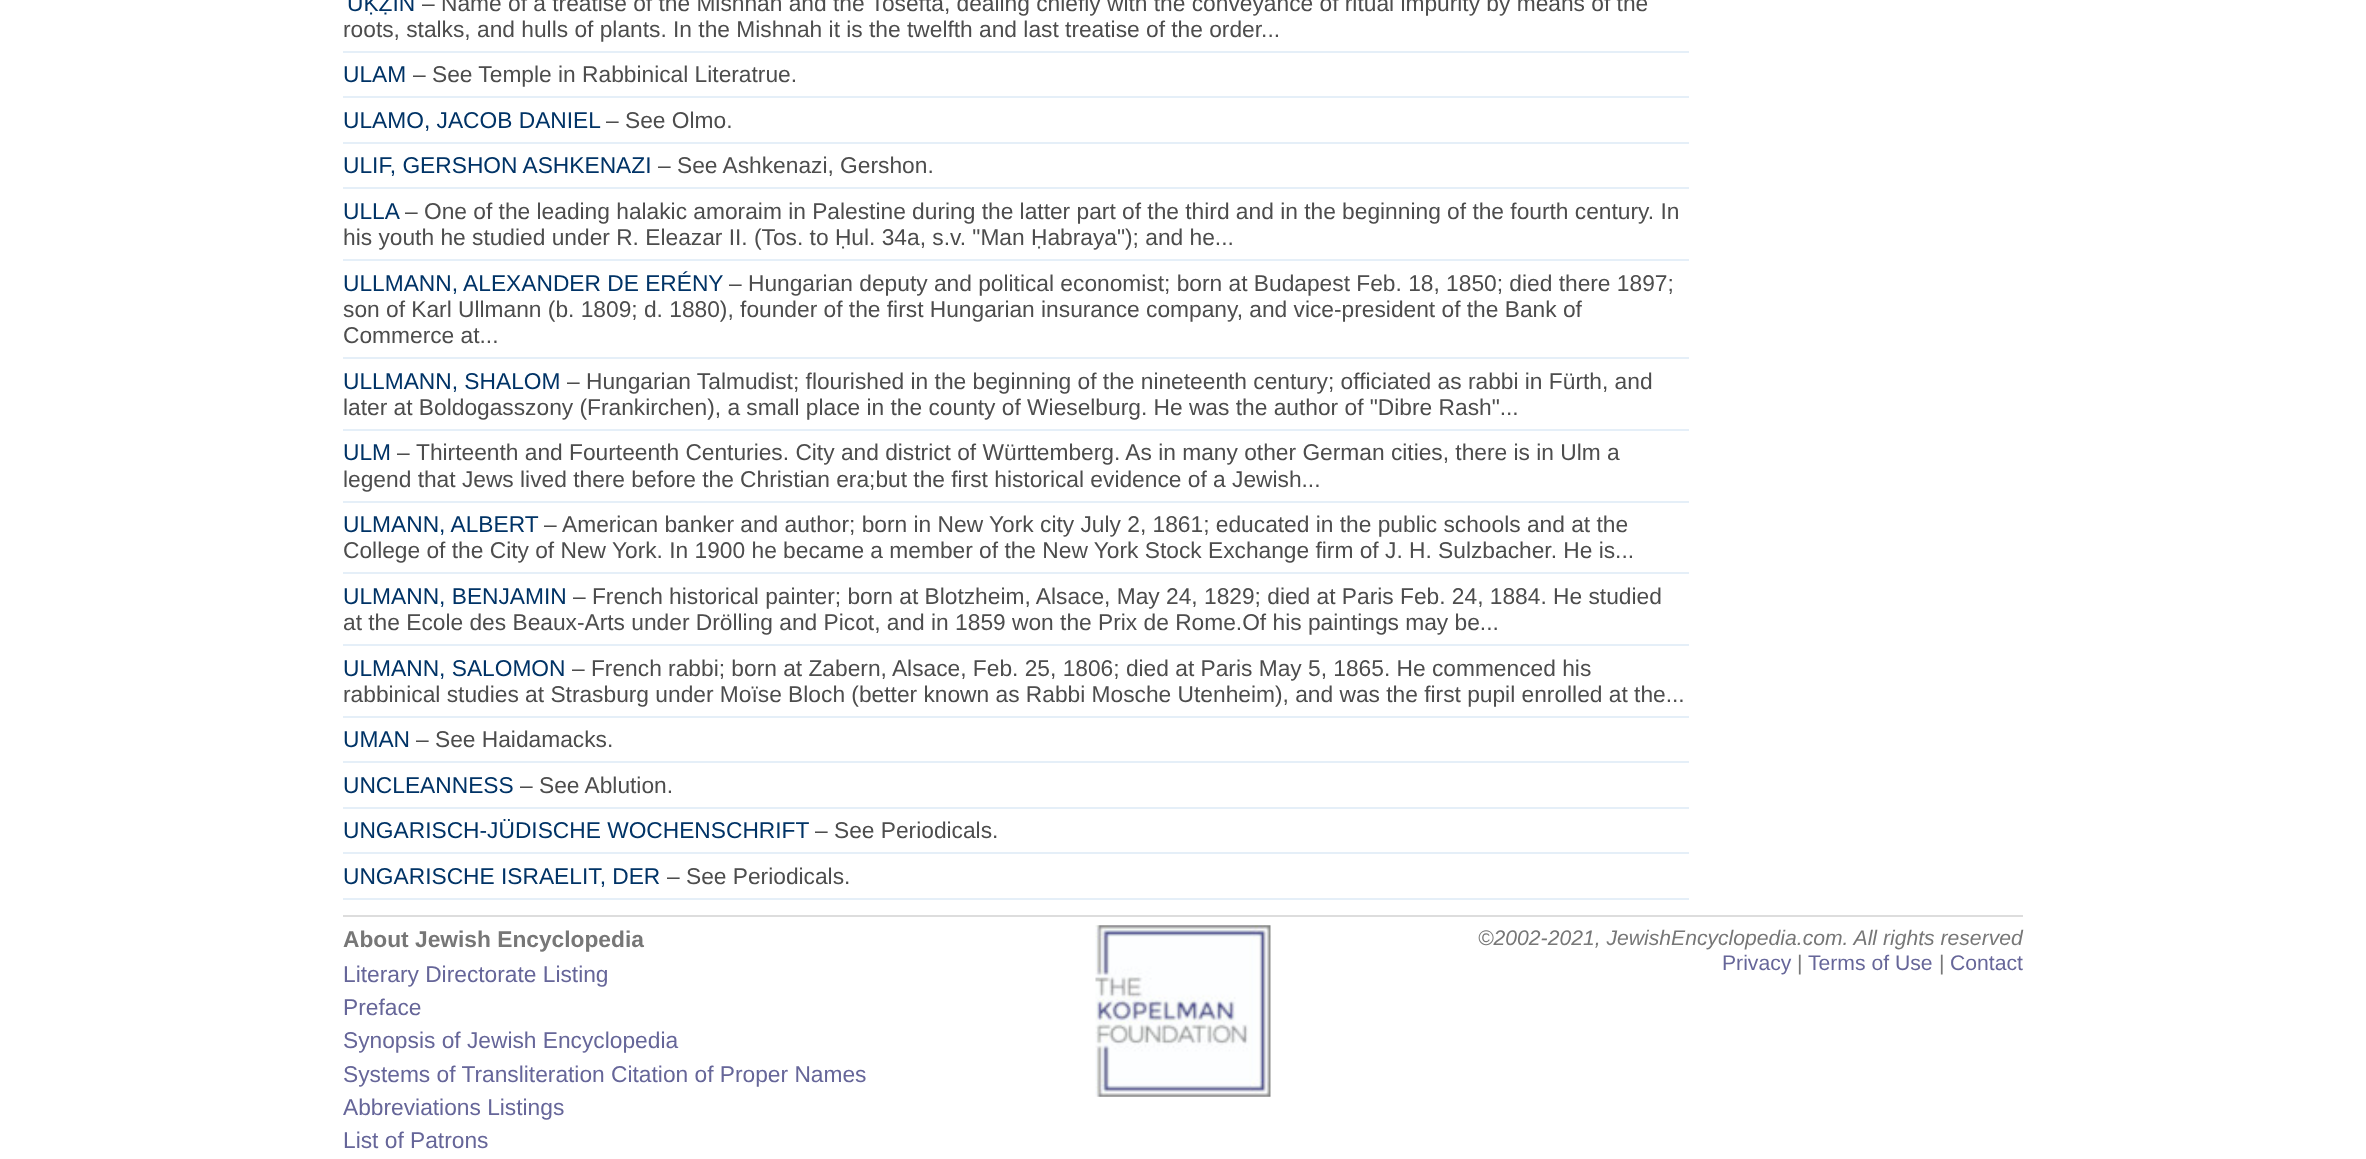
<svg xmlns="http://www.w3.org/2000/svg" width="2366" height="1159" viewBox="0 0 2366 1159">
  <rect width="100%" height="100%" fill="#fff"/>
  <path d="M343 51h1346v2H343z" fill="#e5eff8"/>
  <path d="M343 96h1346v2H343z" fill="#e5eff8"/>
  <path d="M343 142h1346v2H343z" fill="#e5eff8"/>
  <path d="M343 187h1346v2H343z" fill="#e5eff8"/>
  <path d="M343 259h1346v2H343z" fill="#e5eff8"/>
  <path d="M343 357h1346v2H343z" fill="#e5eff8"/>
  <path d="M343 429h1346v2H343z" fill="#e5eff8"/>
  <path d="M343 501h1346v2H343z" fill="#e5eff8"/>
  <path d="M343 572h1346v2H343z" fill="#e5eff8"/>
  <path d="M343 644h1346v2H343z" fill="#e5eff8"/>
  <path d="M343 716h1346v2H343z" fill="#e5eff8"/>
  <path d="M343 761h1346v2H343z" fill="#e5eff8"/>
  <path d="M343 807h1346v2H343z" fill="#e5eff8"/>
  <path d="M343 852h1346v2H343z" fill="#e5eff8"/>
  <path d="M343 898h1346v2H343z" fill="#e5eff8"/>
  <path d="M343 915h1680v2H343z" fill="#ddd"/>
  <image x="1095" y="925" width="176" height="172" href="img/1.png"/>
  <text x="347" y="11" font-family="Liberation Sans" font-size="22.75" fill="#036">UḲẒIN</text>
  <g font-family="Liberation Sans" font-size="22.75" fill="#4d4d4d">
    <text x="422" y="11">– Name of a treatise of the Mishnah and the Tosefta, dealing chiefly with the conveyance of ritual impurity by means of the</text>
    <text x="343" y="37">roots, stalks, and hulls of plants. In the Mishnah it is the twelfth and last treatise of the order...</text>
  </g>
  <text x="343" y="82" font-family="Liberation Sans" font-size="22.75" fill="#036">ULAM</text>
  <text x="413" y="82" font-family="Liberation Sans" font-size="22.75" fill="#4d4d4d">– See Temple in Rabbinical Literatrue.</text>
  <text x="343" y="128" font-family="Liberation Sans" font-size="22.75" fill="#036">ULAMO, JACOB DANIEL</text>
  <text x="606" y="128" font-family="Liberation Sans" font-size="22.75" fill="#4d4d4d">– See Olmo.</text>
  <text x="343" y="173" font-family="Liberation Sans" font-size="22.75" fill="#036">ULIF, GERSHON ASHKENAZI</text>
  <text x="658" y="173" font-family="Liberation Sans" font-size="22.75" fill="#4d4d4d">– See Ashkenazi, Gershon.</text>
  <text x="343" y="219" font-family="Liberation Sans" font-size="22.75" fill="#036">ULLA</text>
  <g font-family="Liberation Sans" font-size="22.75" fill="#4d4d4d">
    <text x="405" y="219">– One of the leading halakic amoraim in Palestine during the latter part of the third and in the beginning of the fourth century. In</text>
    <text x="343" y="245">his youth he studied under R. Eleazar II. (Tos. to Ḥul. 34a, s.v. "Man Ḥabraya"); and he...</text>
  </g>
  <text x="343" y="291" font-family="Liberation Sans" font-size="22.75" fill="#036">ULLMANN, ALEXANDER DE ERÉNY</text>
  <g font-family="Liberation Sans" font-size="22.75" fill="#4d4d4d">
    <text x="729" y="291">– Hungarian deputy and political economist; born at Budapest Feb. 18, 1850; died there 1897;</text>
    <text x="343" y="317">son of Karl Ullmann (b. 1809; d. 1880), founder of the first Hungarian insurance company, and vice-president of the Bank of</text>
    <text x="343" y="343">Commerce at...</text>
  </g>
  <text x="343" y="389" font-family="Liberation Sans" font-size="22.75" fill="#036">ULLMANN, SHALOM</text>
  <g font-family="Liberation Sans" font-size="22.75" fill="#4d4d4d">
    <text x="567" y="389">– Hungarian Talmudist; flourished in the beginning of the nineteenth century; officiated as rabbi in Fürth, and</text>
    <text x="343" y="415">later at Boldogasszony (Frankirchen), a small place in the county of Wieselburg. He was the author of "Dibre Rash"...</text>
  </g>
  <text x="343" y="460" font-family="Liberation Sans" font-size="22.75" fill="#036">ULM</text>
  <g font-family="Liberation Sans" font-size="22.75" fill="#4d4d4d">
    <text x="397" y="460">–</text>
    <text x="416" y="460">Thirteenth and Fourteenth Centuries. City and district of Württemberg. As in many other German cities, there is in Ulm a</text>
    <text x="343" y="487">legend that Jews lived there before the Christian era;but the first historical evidence of a Jewish...</text>
  </g>
  <text x="343" y="532" font-family="Liberation Sans" font-size="22.75" fill="#036">ULMANN, ALBERT</text>
  <g font-family="Liberation Sans" font-size="22.75" fill="#4d4d4d">
    <text x="544" y="532">–</text>
    <text x="562" y="532">American banker and author; born in New York city July 2, 1861; educated in the public schools and at the</text>
    <text x="343" y="558">College of the City of New York. In 1900 he became a member of the New York Stock Exchange firm of J. H. Sulzbacher. He is...</text>
  </g>
  <text x="343" y="604" font-family="Liberation Sans" font-size="22.75" fill="#036">ULMANN, BENJAMIN</text>
  <g font-family="Liberation Sans" font-size="22.75" fill="#4d4d4d">
    <text x="573" y="604">– French historical painter; born at Blotzheim, Alsace, May 24, 1829; died at Paris Feb. 24, 1884. He studied</text>
    <text x="343" y="630">at the Ecole des Beaux-Arts under Drölling and Picot, and in 1859 won the Prix de Rome.Of his paintings may be...</text>
  </g>
  <text x="343" y="676" font-family="Liberation Sans" font-size="22.75" fill="#036">ULMANN, SALOMON</text>
  <g font-family="Liberation Sans" font-size="22.75" fill="#4d4d4d">
    <text x="572" y="676">– French rabbi; born at Zabern, Alsace, Feb. 25, 1806; died at Paris May 5, 1865. He commenced his</text>
    <text x="343" y="702">rabbinical studies at Strasburg under Moïse Bloch (better known as Rabbi Mosche Utenheim), and was the first pupil enrolled at the...</text>
  </g>
  <text x="343" y="747" font-family="Liberation Sans" font-size="22.75" fill="#036">UMAN</text>
  <text x="416" y="747" font-family="Liberation Sans" font-size="22.75" fill="#4d4d4d">– See Haidamacks.</text>
  <text x="343" y="793" font-family="Liberation Sans" font-size="22.75" fill="#036">UNCLEANNESS</text>
  <text x="520" y="793" font-family="Liberation Sans" font-size="22.75" fill="#4d4d4d">– See Ablution.</text>
  <text x="343" y="838" font-family="Liberation Sans" font-size="22.75" fill="#036">UNGARISCH-JÜDISCHE WOCHENSCHRIFT</text>
  <text x="815" y="838" font-family="Liberation Sans" font-size="22.75" fill="#4d4d4d">– See Periodicals.</text>
  <text x="343" y="884" font-family="Liberation Sans" font-size="22.75" fill="#036">UNGARISCHE ISRAELIT, DER</text>
  <text x="667" y="884" font-family="Liberation Sans" font-size="22.75" fill="#4d4d4d">– See Periodicals.</text>
  <text x="343" y="947" font-family="Liberation Sans" font-size="22.75" font-weight="bold" fill="#777">About Jewish Encyclopedia</text>
  <g font-family="Liberation Sans" font-size="22.75" fill="#669">
    <text x="343" y="982">Literary Directorate Listing</text>
    <text x="343" y="1015">Preface</text>
    <text x="343" y="1048">Synopsis of Jewish Encyclopedia</text>
    <text x="343" y="1082">Systems of Transliteration Citation of Proper Names</text>
    <text x="343" y="1115">Abbreviations Listings</text>
    <text x="343" y="1148">List of Patrons</text>
  </g>
  <text x="1478" y="945" font-family="Liberation Sans" font-size="21.15" font-style="italic" fill="#777">©2002-2021, JewishEncyclopedia.com. All rights reserved</text>
  <text x="1722" y="970" font-family="Liberation Sans" font-size="21.15" fill="#669">Privacy</text>
  <text x="1797" y="970" font-family="Liberation Sans" font-size="21.15" fill="#777">|</text>
  <text x="1808" y="970" font-family="Liberation Sans" font-size="21.15" fill="#669">Terms of Use</text>
  <text x="1939" y="970" font-family="Liberation Sans" font-size="21.15" fill="#777">|</text>
  <text x="1950" y="970" font-family="Liberation Sans" font-size="21.15" fill="#669">Contact</text>
</svg>
